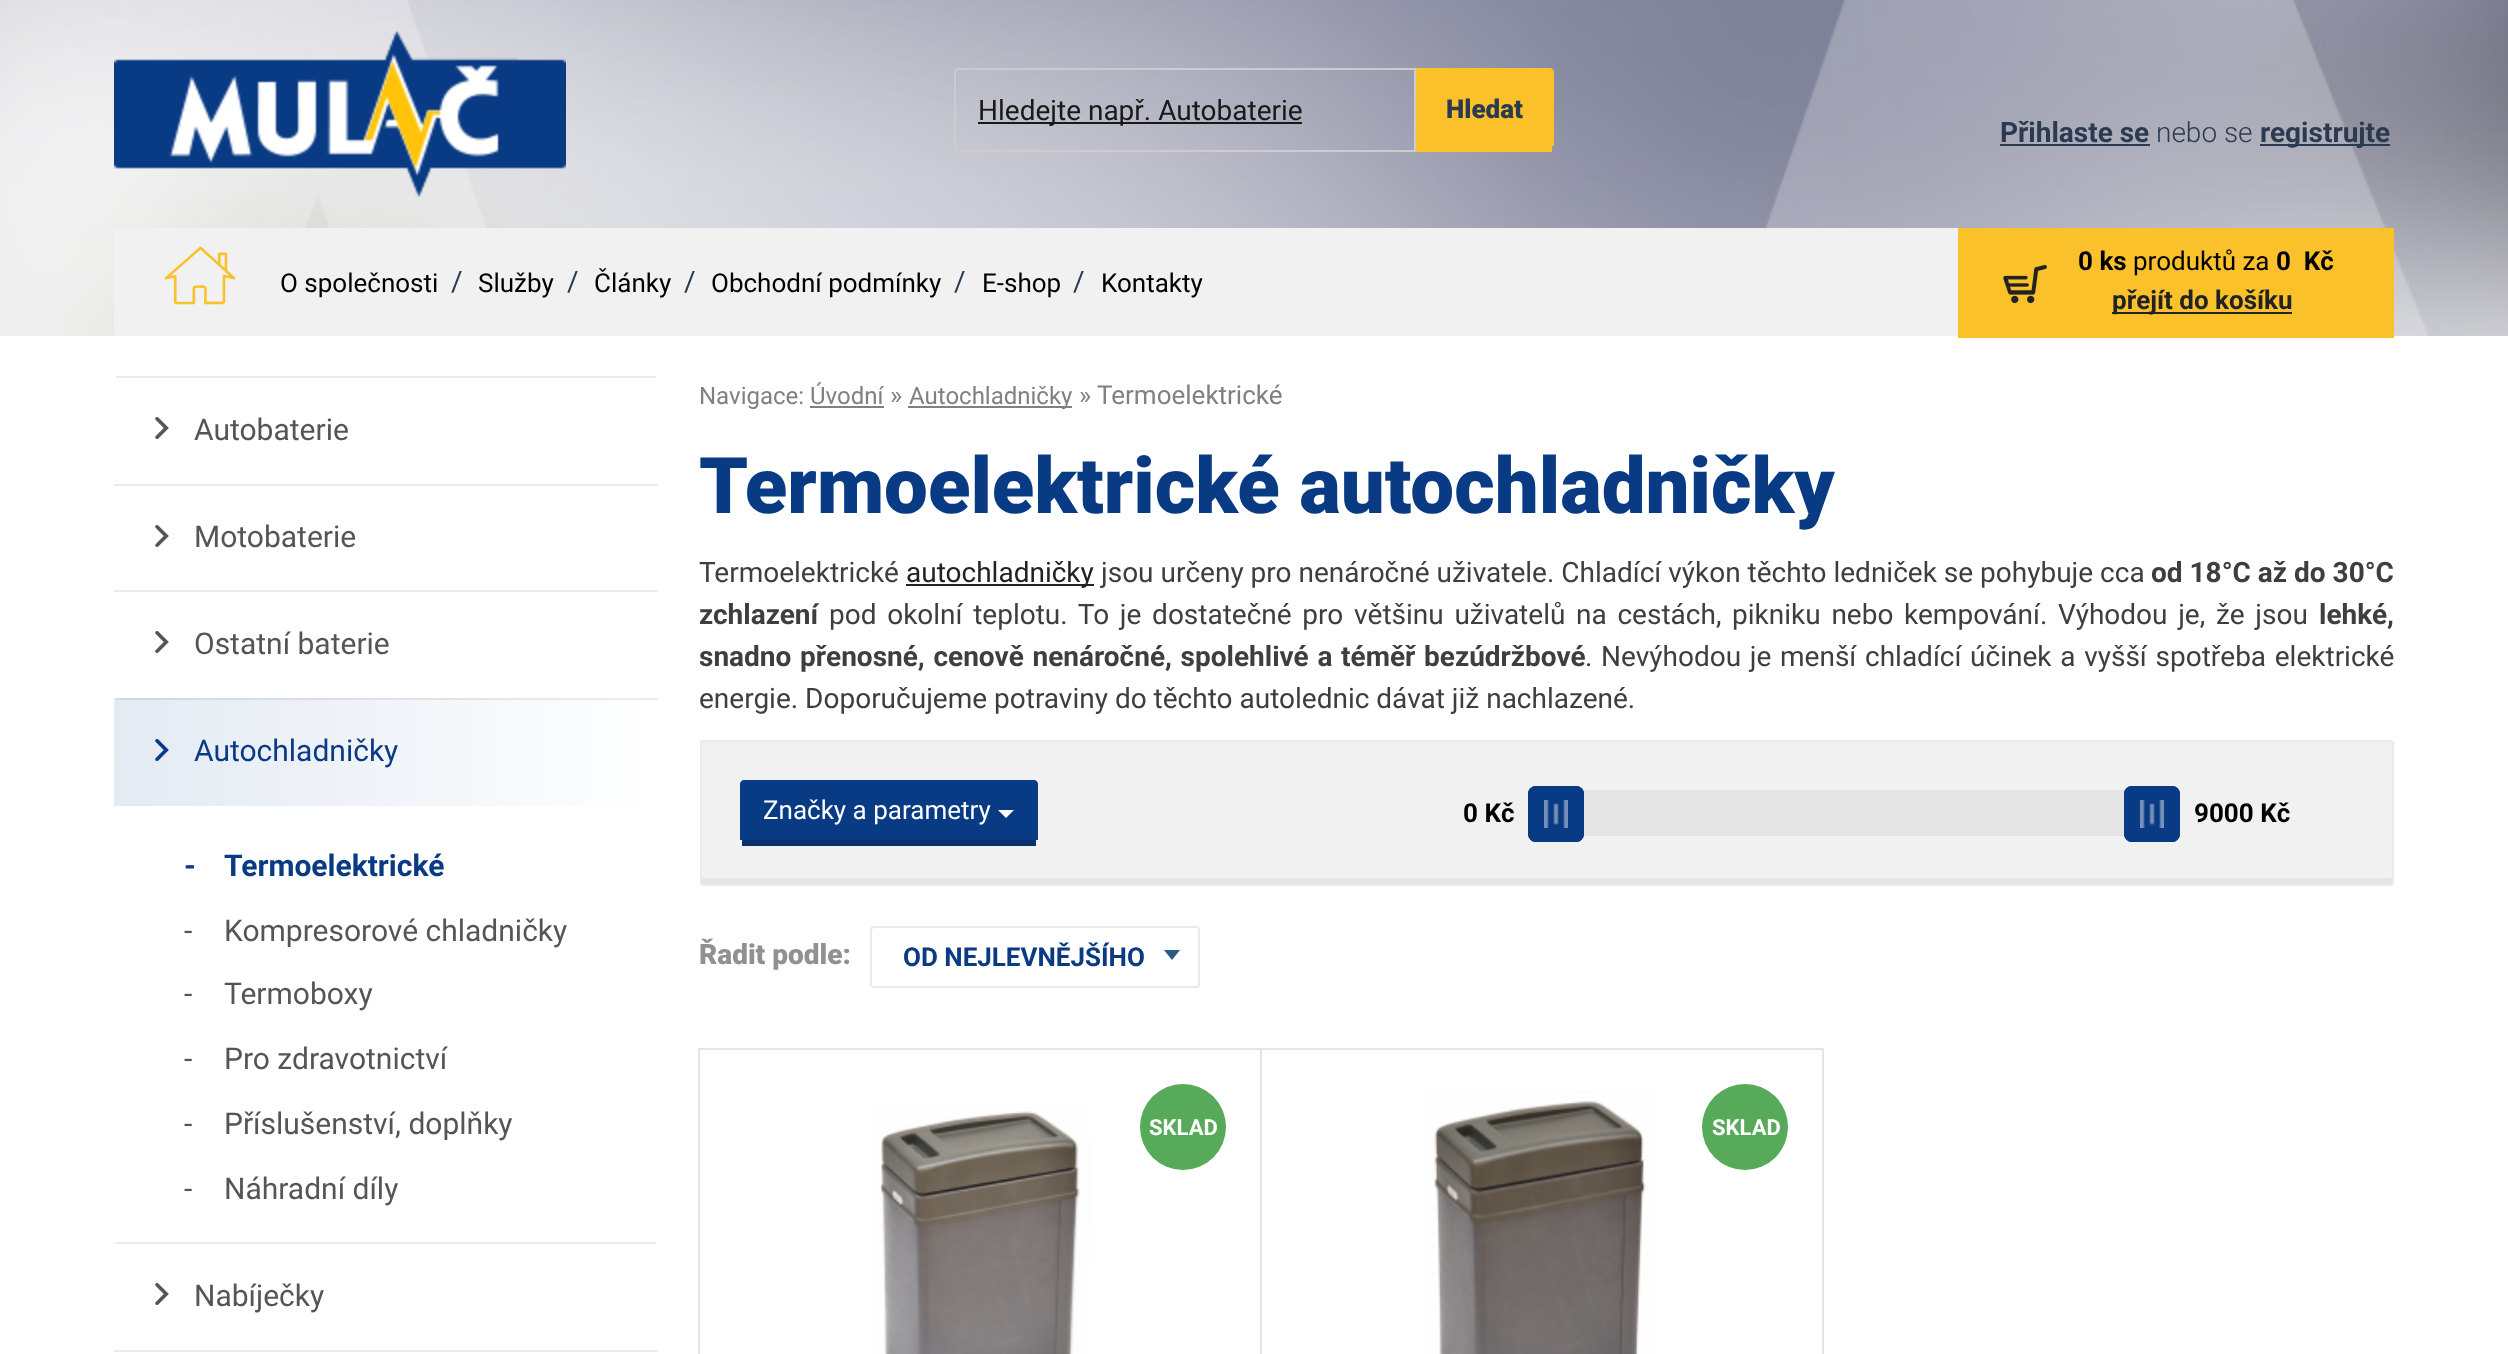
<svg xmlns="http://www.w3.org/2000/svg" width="2508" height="1354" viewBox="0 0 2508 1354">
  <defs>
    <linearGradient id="g1" gradientUnits="userSpaceOnUse" x1="658" y1="752" x2="114" y2="752"><stop offset="0" stop-color="#fff" stop-opacity="0.12"/><stop offset="1" stop-color="#09428f" stop-opacity="0.11"/></linearGradient>
  </defs>
  <rect width="100%" height="100%" fill="#fff"/>
  <image x="0" y="0" width="2508" height="336" href="img/1.png"/>
  <image x="114" y="31" width="452" height="166" href="img/2.png"/>
  <path d="M1414 68H1550C1552 68 1554 70 1554 72V146H1414Z" fill="#fac12a"/>
  <path d="M1414 146h138v6H1414z" fill="#fac12a"/>
  <path d="M958 69H1415V151H958C956.5 151 955 149.5 955 148V72C955 70.5 956.5 69 958 69Z" fill="none" stroke="#ccc" stroke-width="2"/>
  <path d="M978 122h324v2H978z" fill="#191919"/>
  <path d="M2000 144h150v2H2000z" fill="#2b3a51"/>
  <path d="M2260 144h130v2H2260z" fill="#2b3a51"/>
  <rect x="114" y="228" width="2280" height="108" rx="4" fill="#f1f1f1"/>
  <image x="164" y="246" width="72" height="59" href="img/3.png"/>
  <path d="M1958 228h436v110H1958z" fill="#fac12a"/>
  <image x="2003" y="265" width="44" height="39" href="img/4.png"/>
  <path d="M2112 312h180v2H2112z" fill="#222"/>
  <path d="M116 376h540v2H116z" fill="#eaeaea"/>
  <path d="M114 484h544v2H114z" fill="#eaeaea"/>
  <image x="155" y="417" width="14" height="22" href="img/5.png"/>
  <path d="M114 590h544v2H114z" fill="#eaeaea"/>
  <image x="155" y="525" width="14" height="22" href="img/5.png"/>
  <path d="M114 698h544v2H114z" fill="#eaeaea"/>
  <image x="155" y="631" width="14" height="22" href="img/5.png"/>
  <path d="M118 698H654C656 698 658 700 658 702V806H114V702C114 700 116 698 118 698Z" fill="url(#g1)"/>
  <image x="155" y="739" width="14" height="22" href="img/6.png"/>
  <path d="M116 1242h540v2H116z" fill="#eaeaea"/>
  <path d="M114 1350h544v2H114z" fill="#eaeaea"/>
  <image x="155" y="1283" width="14" height="22" href="img/5.png"/>
  <path d="M908 406h164v2H908z" fill="#808080"/>
  <path d="M810 406h74v2H810z" fill="#808080"/>
  <path d="M906 584h188v2H906z" fill="#222"/>
  <rect x="700" y="740" width="1694" height="146" rx="4" fill="#f1f1f1"/>
  <path d="M702 876C702 878 701 884 704 884H2390L2392 883V876C2392 877 2391 878 2390 878H704C703 878 702 877 702 876Z" fill="#e5e5e5"/>
  <rect x="701" y="741" width="1692" height="144" rx="3" fill="none" stroke="#eaeaea" stroke-width="2"/>
  <path d="M744 780H1034C1036 780 1038 782 1038 784V840H740V784C740 782 742 780 744 780Z" fill="#093a84"/>
  <path d="M742 840h294v6H742z" fill="#07306c"/>
  <path d="M998 810H1014L1006 818Z" fill="#fff"/>
  <path d="M1555 791h598v44H1555z" fill="none" stroke="#e4e4e4" stroke-width="2"/>
  <path d="M1583 792h542v42H1583z" fill="#e5e5e5"/>
  <rect x="1528" y="786" width="56" height="56" rx="8" fill="#093a84"/>
  <image x="1544" y="800" width="24" height="28" href="img/7.png"/>
  <rect x="1529" y="787" width="54" height="54" rx="7" fill="none" stroke="#093a84" stroke-width="2"/>
  <rect x="2124" y="786" width="56" height="56" rx="8" fill="#093a84"/>
  <image x="2140" y="800" width="24" height="28" href="img/7.png"/>
  <rect x="2125" y="787" width="54" height="54" rx="7" fill="none" stroke="#093a84" stroke-width="2"/>
  <rect x="871" y="927" width="328" height="60" rx="3" fill="none" stroke="#eaeaea" stroke-width="2"/>
  <path d="M1164 950H1180L1172 960Z" fill="#2d5885"/>
  <path d="M699 1049h562v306H699z" fill="none" stroke="#e5e5e5" stroke-width="2"/>
  <image x="871" y="1102" width="218" height="252" href="img/8.png"/>
  <image x="1089" y="1102" width="1" height="252" href="img/9.png"/>
  <circle cx="1183" cy="1127" r="43" fill="#58aa5b"/>
  <path d="M1261 1049h562v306H1261z" fill="none" stroke="#e5e5e5" stroke-width="2"/>
  <image x="1425" y="1091" width="230" height="1" href="img/10.png"/>
  <image x="1425" y="1092" width="230" height="262" href="img/11.png"/>
  <circle cx="1745" cy="1127" r="43" fill="#58aa5b"/>
  <text x="978" y="120" font-family="Roboto" font-size="28" fill="#191919">Hledejte např. Autobaterie</text>
  <text x="1446" y="118" font-family="Roboto" font-size="26" font-weight="900" fill="#2b3a51">Hledat</text>
  <text x="2000" y="142" font-family="Roboto" font-size="28" font-weight="bold" fill="#2b3a51">Přihlaste se</text>
  <text x="2156" y="142" font-family="Roboto" font-size="28" font-weight="300" fill="#2b3a51">nebo se</text>
  <text x="2260" y="142" font-family="Roboto" font-size="28" font-weight="bold" fill="#2b3a51">registrujte</text>
  <text x="280" y="292" font-family="Roboto" font-size="26" fill="#000">O společnosti</text>
  <text x="451" y="291" font-family="Roboto" font-size="28" fill="#2b3a51">/</text>
  <text x="478" y="292" font-family="Roboto" font-size="26" fill="#000">Služby</text>
  <text x="567" y="291" font-family="Roboto" font-size="28" fill="#2b3a51">/</text>
  <text x="594" y="292" font-family="Roboto" font-size="26" fill="#000">Články</text>
  <text x="684" y="291" font-family="Roboto" font-size="28" fill="#2b3a51">/</text>
  <text x="711" y="292" font-family="Roboto" font-size="26" fill="#000">Obchodní podmínky</text>
  <text x="954" y="291" font-family="Roboto" font-size="28" fill="#2b3a51">/</text>
  <text x="982" y="292" font-family="Roboto" font-size="26" fill="#000">E-shop</text>
  <text x="1073" y="291" font-family="Roboto" font-size="28" fill="#2b3a51">/</text>
  <text x="1101" y="292" font-family="Roboto" font-size="26" fill="#000">Kontakty</text>
  <text x="2078" y="270" font-family="Roboto" font-size="26" font-weight="bold" fill="#000">0 ks</text>
  <text x="2133" y="270" font-family="Roboto" font-size="26" fill="#000">produktů za</text>
  <text x="2276" y="270" font-family="Roboto" font-size="26" font-weight="bold" fill="#000" xml:space="preserve">0  Kč</text>
  <text x="2112" y="309" font-family="Roboto" font-size="26" font-weight="bold" fill="#222">přejít do košíku</text>
  <g font-family="Roboto" font-size="30" fill="#555">
    <text x="194" y="440">Autobaterie</text>
    <text x="194" y="547">Motobaterie</text>
    <text x="194" y="654">Ostatní baterie</text>
  </g>
  <text x="194" y="761" font-family="Roboto" font-size="30" fill="#093a84">Autochladničky</text>
  <g font-family="Roboto" font-size="30" font-weight="bold" fill="#093a84">
    <text x="184" y="876">-</text>
    <text x="224" y="876">Termoelektrické</text>
  </g>
  <g font-family="Roboto" font-size="30" fill="#555">
    <text x="184" y="941">-</text>
    <text x="224" y="941">Kompresorové chladničky</text>
    <text x="184" y="1004">-</text>
    <text x="224" y="1004">Termoboxy</text>
    <text x="184" y="1069">-</text>
    <text x="224" y="1069">Pro zdravotnictví</text>
    <text x="184" y="1134">-</text>
    <text x="224" y="1134">Příslušenství, doplňky</text>
    <text x="184" y="1199">-</text>
    <text x="224" y="1199">Náhradní díly</text>
    <text x="194" y="1306">Nabíječky</text>
  </g>
  <text x="699" y="404" font-family="Roboto" font-size="24" fill="#808080">Navigace: Úvodní</text>
  <text x="890" y="404" font-family="Roboto" font-size="26" fill="#808080">»</text>
  <text x="909" y="404" font-family="Roboto" font-size="24" fill="#808080">Autochladničky</text>
  <g font-family="Roboto" font-size="26" fill="#808080">
    <text x="1079" y="404">»</text>
    <text x="1097" y="404">Termoelektrické</text>
  </g>
  <text x="699" y="513" font-family="Roboto" font-size="78" font-weight="900" fill="#093a84">Termoelektrické autochladničky</text>
  <text x="699" y="582" font-family="Roboto" font-size="28" fill="#3e3e3e">Termoelektrické</text>
  <text x="906" y="582" font-family="Roboto" font-size="28" fill="#222">autochladničky</text>
  <text x="1101" y="582" font-family="Roboto" font-size="28" fill="#3e3e3e">jsou určeny pro nenáročné uživatele. Chladící výkon těchto ledniček se pohybuje cca</text>
  <g font-family="Roboto" font-size="28" font-weight="bold" fill="#3e3e3e">
    <text x="2151" y="582">od 18°C až do 30°C</text>
    <text x="699" y="624">zchlazení</text>
  </g>
  <text x="829" y="624" word-spacing="3.75" font-family="Roboto" font-size="28" fill="#3e3e3e">pod okolní teplotu. To je dostatečné pro většinu uživatelů na cestách, pikniku nebo kempování. Výhodou je, že jsou</text>
  <g font-family="Roboto" font-size="28" font-weight="bold" fill="#3e3e3e">
    <text x="2319" y="624">lehké,</text>
    <text x="699" y="666" word-spacing="1.75">snadno přenosné, cenově nenáročné, spolehlivé a téměř bezúdržbové</text>
  </g>
  <g font-family="Roboto" font-size="28" fill="#3e3e3e">
    <text x="1585" y="666" word-spacing="1.75">. Nevýhodou je menší chladící účinek a vyšší spotřeba elektrické</text>
    <text x="699" y="708">energie. Doporučujeme potraviny do těchto autolednic dávat již nachlazené.</text>
  </g>
  <text x="763" y="819" font-family="Roboto" font-size="26" fill="#fff">Značky a parametry</text>
  <g font-family="Roboto" font-size="26" font-weight="bold" fill="#000">
    <text x="1463" y="822">0 Kč</text>
    <text x="2194" y="822">9000 Kč</text>
  </g>
  <text x="699" y="964" font-family="Roboto" font-size="28" font-weight="900" fill="#919191">Řadit podle:</text>
  <text x="903" y="966" font-family="Roboto" font-size="26" font-weight="bold" fill="#093a84">OD NEJLEVNĚJŠÍHO</text>
  <g font-family="Roboto" font-size="22" font-weight="bold" fill="#fff">
    <text x="1149" y="1135">SKLAD</text>
    <text x="1712" y="1135">SKLAD</text>
  </g>
</svg>
